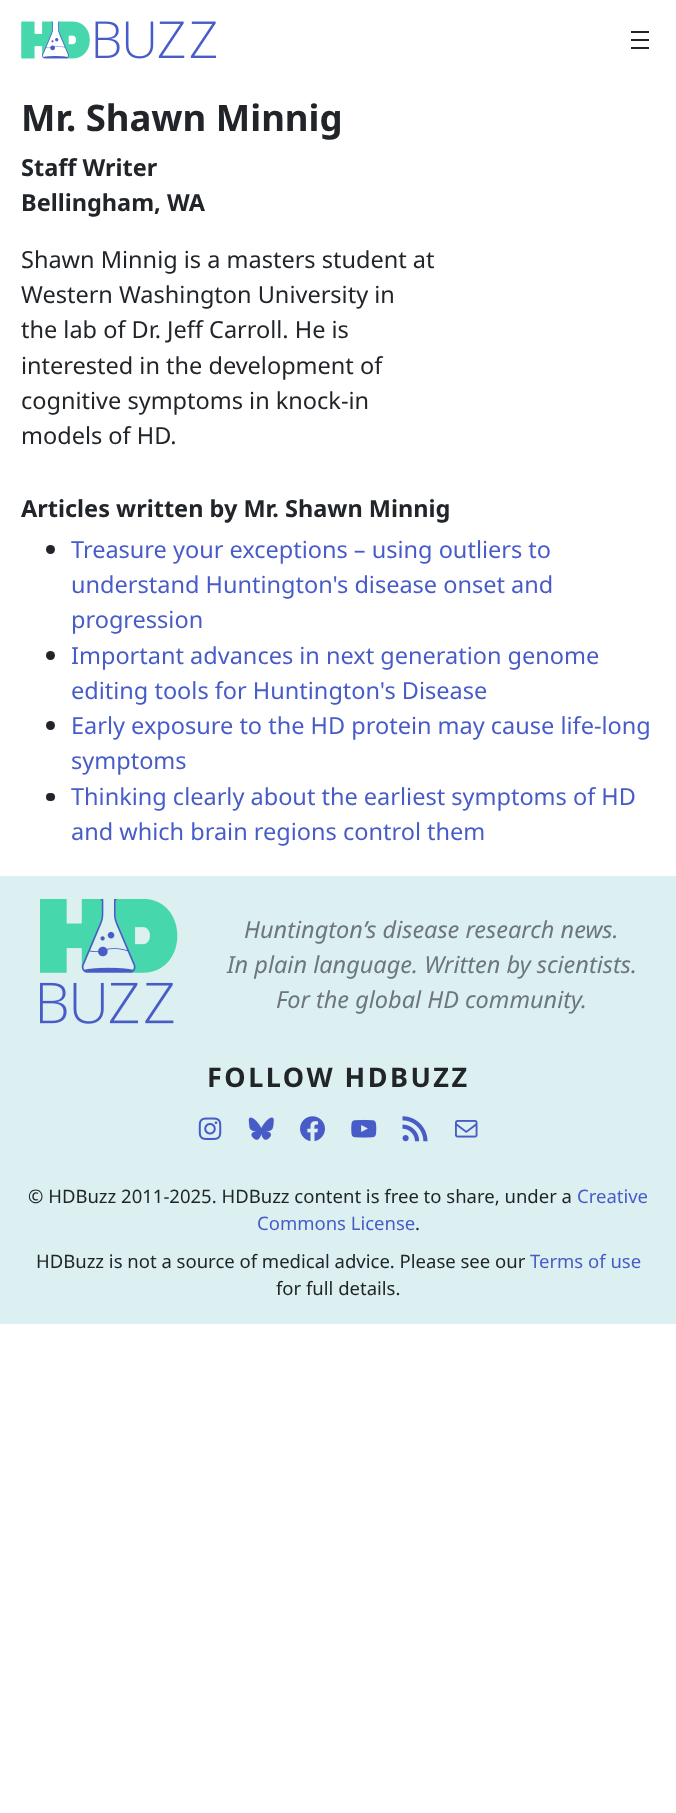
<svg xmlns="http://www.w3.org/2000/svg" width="676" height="1813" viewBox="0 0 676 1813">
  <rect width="100%" height="100%" fill="#fff"/>
  <image x="21" y="21" width="195" height="38" href="img/1.png"/>
  <path d="M631 31h18v2H631z" fill="#212529"/>
  <path d="M631 39h18v2H631z" fill="#212529"/>
  <path d="M631 47h18v2H631z" fill="#212529"/>
  <circle cx="50.5" cy="549.5" r="4.5" fill="#212529"/>
  <circle cx="50.5" cy="655.5" r="4.5" fill="#212529"/>
  <circle cx="50.5" cy="725.5" r="4.5" fill="#212529"/>
  <rect x="46" y="793" width="9" height="8" rx="4" fill="#212529"/>
  <path d="M0 876h676v448H0z" fill="#dcf0f1"/>
  <image x="40" y="899" width="138" height="125" href="img/2.png"/>
  <image x="198" y="1117" width="24" height="23" href="img/3.png"/>
  <image x="248" y="1117" width="26" height="23" href="img/4.png"/>
  <image x="300" y="1116" width="25" height="26" href="img/5.png"/>
  <image x="351" y="1119" width="26" height="19" href="img/6.png"/>
  <image x="402" y="1116" width="26" height="26" href="img/7.png"/>
  <image x="455" y="1120" width="23" height="18" href="img/8.png"/>
  <text x="21" y="131" font-family="Noto Sans" font-size="36.5" font-weight="bold" fill="#212529">Mr. Shawn Minnig</text>
  <g font-family="Noto Sans" font-size="23.5" font-weight="bold" fill="#212529">
    <text x="21" y="176">Staff Writer</text>
    <text x="21" y="211">Bellingham, WA</text>
  </g>
  <g font-family="Noto Sans" font-size="23.5" fill="#212529">
    <text x="21" y="268">Shawn Minnig is a masters student at</text>
    <text x="21" y="303">Western Washington University in</text>
    <text x="21" y="338">the lab of Dr. Jeff Carroll. He is</text>
    <text x="21" y="374">interested in the development of</text>
    <text x="21" y="409">cognitive symptoms in knock-in</text>
    <text x="21" y="444">models of HD.</text>
  </g>
  <text x="21" y="517" font-family="Noto Sans" font-size="23.5" font-weight="bold" fill="#212529">Articles written by Mr. Shawn Minnig</text>
  <g font-family="Noto Sans" font-size="23.5" fill="#485cc7">
    <text x="71" y="558">Treasure your exceptions – using outliers to</text>
    <text x="71" y="593">understand Huntington's disease onset and</text>
    <text x="71" y="628">progression</text>
    <text x="71" y="664">Important advances in next generation genome</text>
    <text x="71" y="699">editing tools for Huntington's Disease</text>
    <text x="71" y="734">Early exposure to the HD protein may cause life-long</text>
    <text x="71" y="769">symptoms</text>
    <text x="71" y="805">Thinking clearly about the earliest symptoms of HD</text>
    <text x="71" y="840">and which brain regions control them</text>
  </g>
  <g font-family="Noto Sans" font-size="23.5" font-style="italic" fill="#6d767e">
    <text x="244" y="938">Huntington’s disease research news.</text>
    <text x="227" y="973">In plain language. Written by scientists.</text>
    <text x="276" y="1008">For the global HD community.</text>
  </g>
  <text x="207" y="1087" font-family="Noto Sans" font-size="27" font-weight="bold" letter-spacing="2.5" fill="#212529">FOLLOW HDBUZZ</text>
  <text x="28" y="1203" font-family="Noto Sans" font-size="18.5" fill="#212529">© HDBuzz 2011-2025. HDBuzz content is free to share, under a</text>
  <g font-family="Noto Sans" font-size="18.5" fill="#485cc7">
    <text x="577" y="1203">Creative</text>
    <text x="257" y="1230">Commons License</text>
  </g>
  <g font-family="Noto Sans" font-size="18.5" fill="#212529">
    <text x="415" y="1230">.</text>
    <text x="36" y="1268">HDBuzz is not a source of medical advice. Please see our</text>
  </g>
  <text x="530" y="1268" font-family="Noto Sans" font-size="18.5" fill="#485cc7">Terms of use</text>
  <text x="276" y="1295" font-family="Noto Sans" font-size="18.5" fill="#212529">for full details.</text>
</svg>
